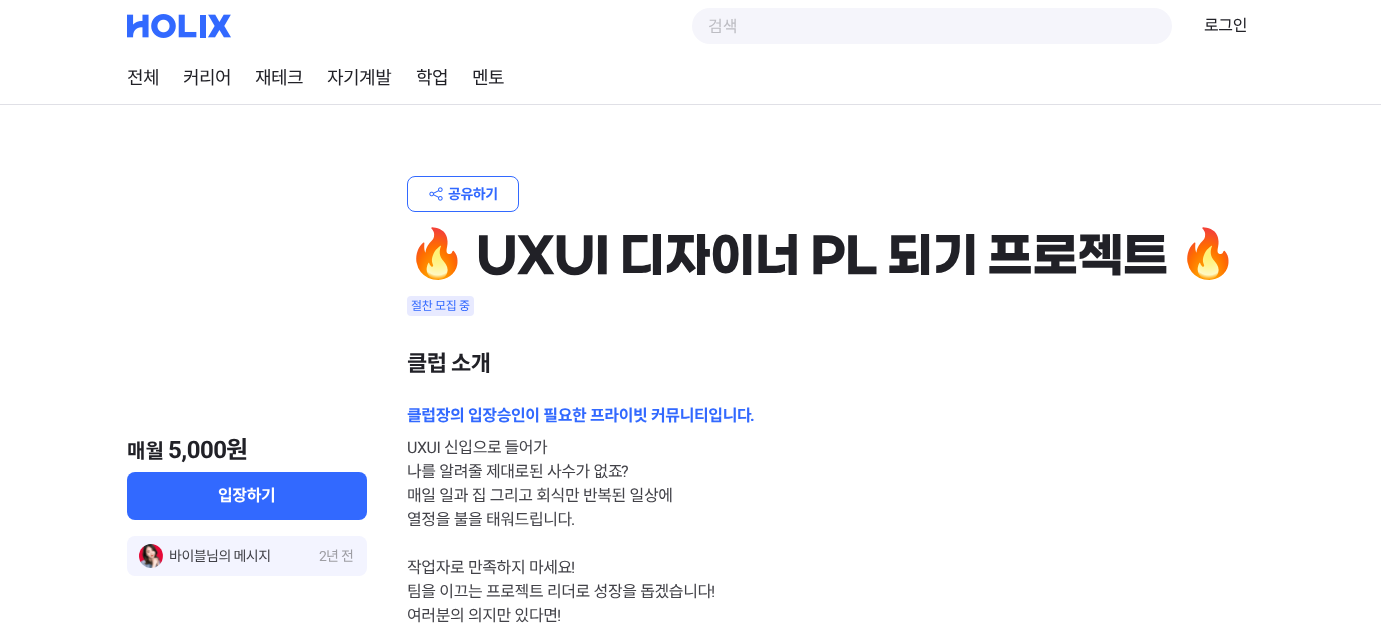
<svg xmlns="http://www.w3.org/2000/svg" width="1381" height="632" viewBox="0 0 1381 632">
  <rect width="100%" height="100%" fill="#fff"/>
  <image x="127" y="14" width="104" height="24" href="img/1.png"/>
  <rect x="692" y="8" width="480" height="36" rx="18" fill="#f5f5fb"/>
  <path d="M0 104h1381v1H0z" fill="#e0e0e6"/>
  <rect x="127" y="472" width="240" height="48" rx="8" fill="#3269ff"/>
  <rect x="127" y="536" width="240" height="40" rx="8" fill="#f3f4ff"/>
  <image x="139" y="544" width="24" height="24" href="img/2.png"/>
  <rect x="407.5" y="176.5" width="111" height="35" rx="7.5" fill="none" stroke="#3269ff"/>
  <image x="429" y="187" width="14" height="14" href="img/3.png"/>
  <rect x="407" y="296" width="67" height="20" rx="4" fill="#e8eaff"/>
  <text x="708" y="32" font-family="Noto Sans KR" font-size="16" fill="#bdbdc3">검색</text>
  <text x="1204" y="31" font-family="Noto Sans KR" font-size="16" letter-spacing="-0.4" fill="#212127">로그인</text>
  <g font-family="Noto Sans KR" font-size="18" letter-spacing="-0.5" fill="#212127">
    <text x="127" y="84">전체</text>
    <text x="183" y="84">커리어</text>
    <text x="255" y="84">재테크</text>
    <text x="327" y="84">자기계발</text>
    <text x="416" y="84">학업</text>
    <text x="472" y="84">멘토</text>
  </g>
  <text x="127" y="458" font-family="Noto Sans KR" font-size="20" font-weight="bold" fill="#212127">매월</text>
  <text x="168" y="458" font-family="Roboto" font-size="24" font-weight="bold" letter-spacing="-0.5" fill="#212127">5,000</text>
  <text x="226" y="458" font-family="Noto Sans KR" font-size="24" font-weight="bold" letter-spacing="-0.5" fill="#212127">원</text>
  <text x="218" y="501" font-family="Noto Sans KR" font-size="16" font-weight="bold" letter-spacing="-0.4" fill="#fff">입장하기</text>
  <g font-family="Noto Sans KR" font-size="14" letter-spacing="-0.5" fill="#424248">
    <text x="169" y="561">바이블</text>
    <text x="206" y="561">님의 메시지</text>
  </g>
  <text x="319" y="561" font-family="Roboto" font-size="14" letter-spacing="-0.5" fill="#9e9ea4">2</text>
  <text x="326" y="561" font-family="Noto Sans KR" font-size="14" letter-spacing="-0.5" fill="#9e9ea4">년 전</text>
  <text x="448" y="199" font-family="Noto Sans KR" font-size="14" font-weight="bold" letter-spacing="-0.5" fill="#3269ff">공유하기</text>
  <text x="407" y="270" font-family="Noto Color Emoji" font-size="48" font-weight="bold" letter-spacing="-1" fill="#212127">🔥</text>
  <g font-family="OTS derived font" font-size="48" font-weight="bold" letter-spacing="-1" fill="#212127">
    <text x="476" y="270">UXUI</text>
    <text x="619" y="270">디자이너</text>
    <text x="810" y="270">PL</text>
    <text x="887" y="270">되기</text>
    <text x="987" y="270">프로젝트</text>
  </g>
  <text x="1178" y="270" font-family="Noto Color Emoji" font-size="48" font-weight="bold" letter-spacing="-1" fill="#212127">🔥</text>
  <text x="411" y="310" font-family="Noto Sans KR" font-size="12" letter-spacing="-0.25" fill="#3269ff">절찬 모집 중</text>
  <text x="407" y="371" font-family="Noto Sans KR" font-size="22" font-weight="bold" letter-spacing="-0.5" fill="#212127">클럽 소개</text>
  <text x="407" y="421" word-spacing="0.5" font-family="Noto Sans KR" font-size="16" font-weight="bold" letter-spacing="-0.4" fill="#3269ff">클럽장의 입장승인이 필요한 프라이빗 커뮤니티입니다</text>
  <text x="750" y="421" font-family="Roboto" font-size="16" font-weight="bold" letter-spacing="-0.4" fill="#3269ff">.</text>
  <text x="407" y="453" font-family="Roboto" font-size="16" letter-spacing="-0.4" fill="#424248">UXUI</text>
  <g font-family="Noto Sans KR" font-size="16" letter-spacing="-0.4" fill="#424248">
    <text x="444" y="453">신입으로 들어가</text>
    <text x="407" y="477" word-spacing="0.5">나를 알려줄 제대로된 사수가 없죠</text>
  </g>
  <text x="621" y="477" font-family="Roboto" font-size="16" letter-spacing="-0.4" fill="#424248">?</text>
  <g font-family="Noto Sans KR" font-size="16" letter-spacing="-0.4" fill="#424248">
    <text x="407" y="501" word-spacing="0.5">매일 일과 집 그리고 회식만 반복된 일상에</text>
    <text x="407" y="525" word-spacing="0.5">열정을 불을 태워드립니다</text>
  </g>
  <text x="571" y="525" font-family="Roboto" font-size="16" letter-spacing="-0.4" fill="#424248">.</text>
  <text x="407" y="573" word-spacing="0.5" font-family="Noto Sans KR" font-size="16" letter-spacing="-0.4" fill="#424248">작업자로 만족하지 마세요</text>
  <text x="571" y="573" font-family="Roboto" font-size="16" letter-spacing="-0.4" fill="#424248">!</text>
  <text x="407" y="597" word-spacing="0.5" font-family="Noto Sans KR" font-size="16" letter-spacing="-0.4" fill="#424248">팀을 이끄는 프로젝트 리더로 성장을 돕겠습니다</text>
  <text x="711" y="597" font-family="Roboto" font-size="16" letter-spacing="-0.4" fill="#424248">!</text>
  <text x="407" y="621" word-spacing="0.5" font-family="Noto Sans KR" font-size="16" letter-spacing="-0.4" fill="#424248">여러분의 의지만 있다면</text>
  <text x="557" y="621" font-family="Roboto" font-size="16" letter-spacing="-0.4" fill="#424248">!</text>
</svg>
